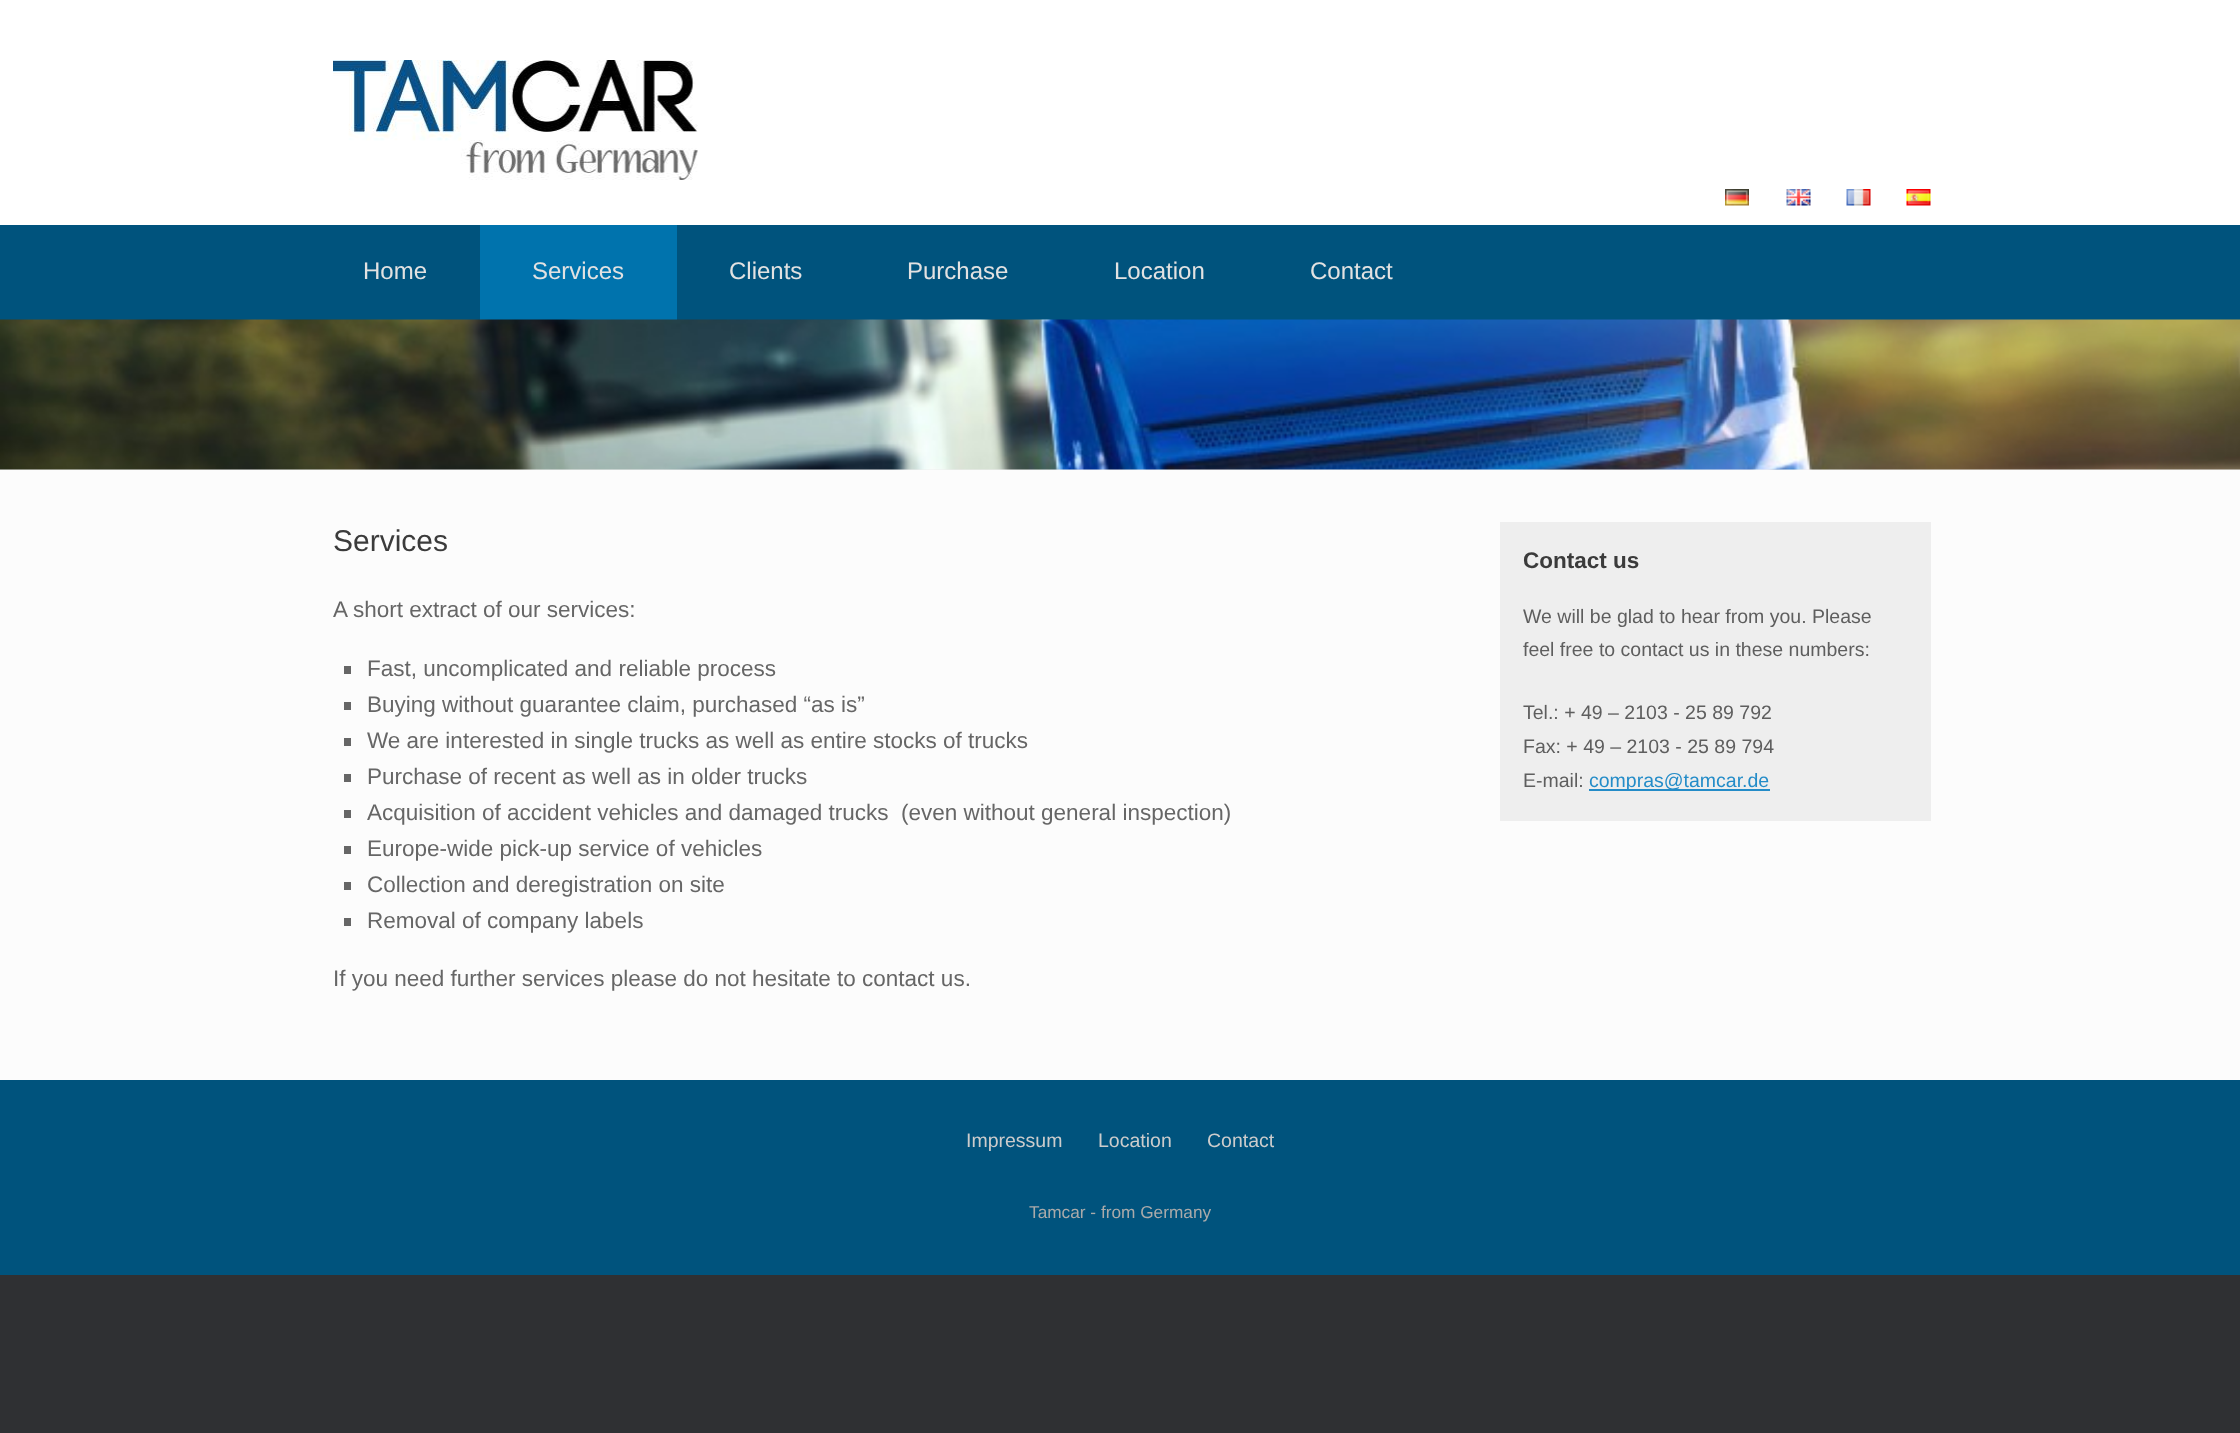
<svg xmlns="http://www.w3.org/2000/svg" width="2240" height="1433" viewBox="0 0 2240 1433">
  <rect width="100%" height="100%" fill="#2f3033"/>
  <path d="M0 0h2240v225H0z" fill="#fff"/>
  <image x="333" y="60" width="365" height="120" href="img/1.png"/>
  <image x="1725" y="189" width="24" height="17" href="img/2.png"/>
  <image x="1786" y="189" width="25" height="17" href="img/3.png"/>
  <image x="1846" y="189" width="25" height="17" href="img/4.png"/>
  <image x="1906" y="189" width="25" height="17" href="img/5.png"/>
  <path d="M0 225h2240v95H0z" fill="#00537d"/>
  <path d="M480 225h197v95H480z" fill="#0073ad"/>
  <path d="M0 469h2240v1H0z" fill="#eee"/>
  <image x="0" y="319" width="2240" height="151" href="img/6.png"/>
  <path d="M0 470h2240v610H0z" fill="#fcfcfc"/>
  <path d="M344 666h7v8H344z" fill="#666"/>
  <path d="M344 702h7v8H344z" fill="#666"/>
  <path d="M344 738h7v8H344z" fill="#666"/>
  <path d="M344 774h7v8H344z" fill="#666"/>
  <path d="M344 810h7v8H344z" fill="#666"/>
  <path d="M344 846h7v8H344z" fill="#666"/>
  <path d="M344 882h7v8H344z" fill="#666"/>
  <path d="M344 918h7v8H344z" fill="#666"/>
  <path d="M1500 522h431v299H1500z" fill="#eee"/>
  <path d="M1589 789h181v2H1589z" fill="#248cc8"/>
  <path d="M0 1080h2240v195H0z" fill="#00537d"/>
  <g font-family="Liberation Sans" font-size="24" fill="#e2e2e2">
    <text x="363" y="279">Home</text>
    <text x="532" y="279">Services</text>
    <text x="729" y="279">Clients</text>
    <text x="907" y="279">Purchase</text>
    <text x="1114" y="279">Location</text>
    <text x="1310" y="279">Contact</text>
  </g>
  <text x="333" y="551" font-family="Liberation Sans" font-size="30" fill="#3b3b3b">Services</text>
  <g font-family="Liberation Sans" font-size="22.5" fill="#666">
    <text x="333" y="617">A short extract of our services:</text>
    <text x="367" y="676">Fast, uncomplicated and reliable process</text>
    <text x="367" y="712">Buying without guarantee claim, purchased “as is”</text>
    <text x="367" y="748">We are interested in single trucks as well as entire stocks of trucks</text>
    <text x="367" y="784">Purchase of recent as well as in older trucks</text>
    <text x="367" y="820">Acquisition of accident vehicles and damaged trucks</text>
    <text x="901" y="820">(even without general inspection)</text>
    <text x="367" y="856">Europe-wide pick-up service of vehicles</text>
    <text x="367" y="892">Collection and deregistration on site</text>
    <text x="367" y="928">Removal of company labels</text>
    <text x="333" y="986">If you need further services please do not hesitate to contact us.</text>
  </g>
  <text x="1523" y="568" font-family="Liberation Sans" font-size="22.5" font-weight="bold" fill="#3b3b3b">Contact us</text>
  <g font-family="Liberation Sans" font-size="19.5" fill="#5e5e5e">
    <text x="1523" y="623">We will be glad to hear from you. Please</text>
    <text x="1523" y="656">feel free to contact us in these numbers:</text>
    <text x="1523" y="719">Tel.: + 49 – 2103 - 25 89 792</text>
    <text x="1523" y="753">Fax: + 49 – 2103 - 25 89 794</text>
    <text x="1523" y="787">E-mail:</text>
  </g>
  <text x="1589" y="787" font-family="Liberation Sans" font-size="19.5" fill="#248cc8">compras@tamcar.de</text>
  <g font-family="Liberation Sans" font-size="19.5" fill="#ccc">
    <text x="966" y="1147">Impressum</text>
    <text x="1098" y="1147">Location</text>
    <text x="1207" y="1147">Contact</text>
  </g>
  <text x="1029" y="1218" font-family="Liberation Sans" font-size="17.25" fill="#aaa">Tamcar - from Germany</text>
</svg>
